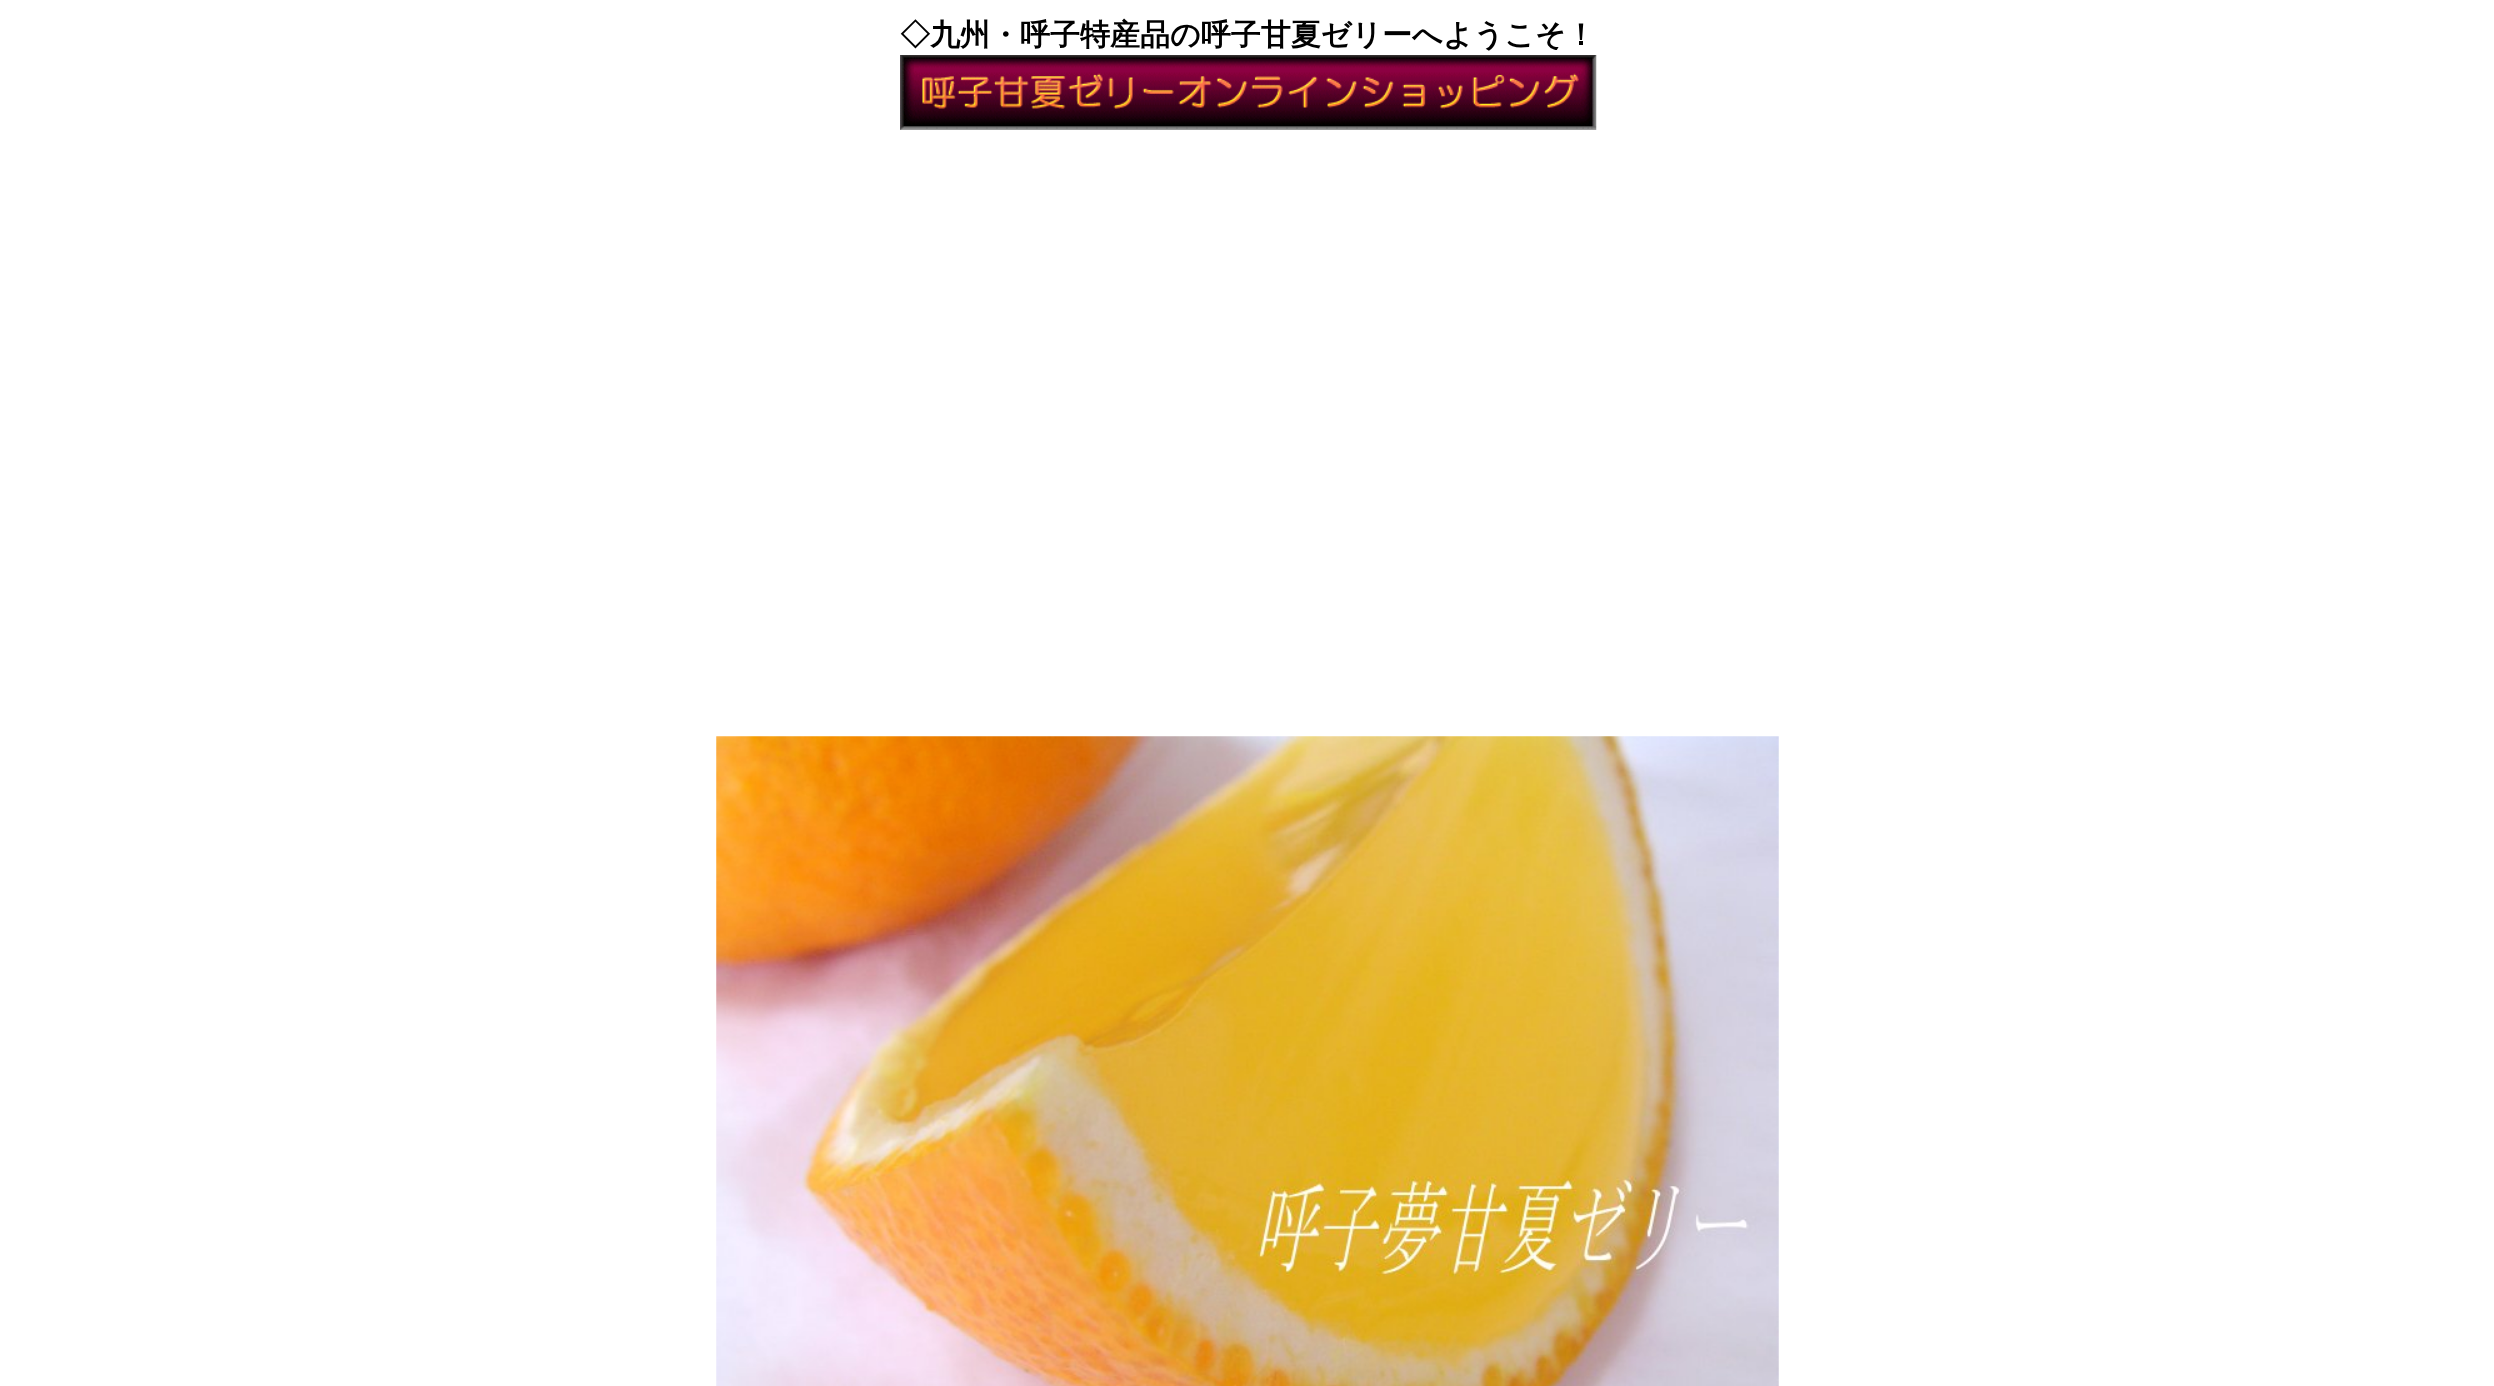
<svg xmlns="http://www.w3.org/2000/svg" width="2494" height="1386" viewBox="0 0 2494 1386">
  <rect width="100%" height="100%" fill="#fff"/>
  <image x="900" y="55" width="697" height="75" href="img/1.png"/>
  <image x="716" y="736" width="1063" height="650" href="img/2.png"/>
  <text x="900" y="45" font-family="WenQuanYi Zen Hei" font-size="30" font-weight="bold" fill="#000">◇九州・呼子特産品の呼子甘夏ゼリーへようこそ！</text>
</svg>
